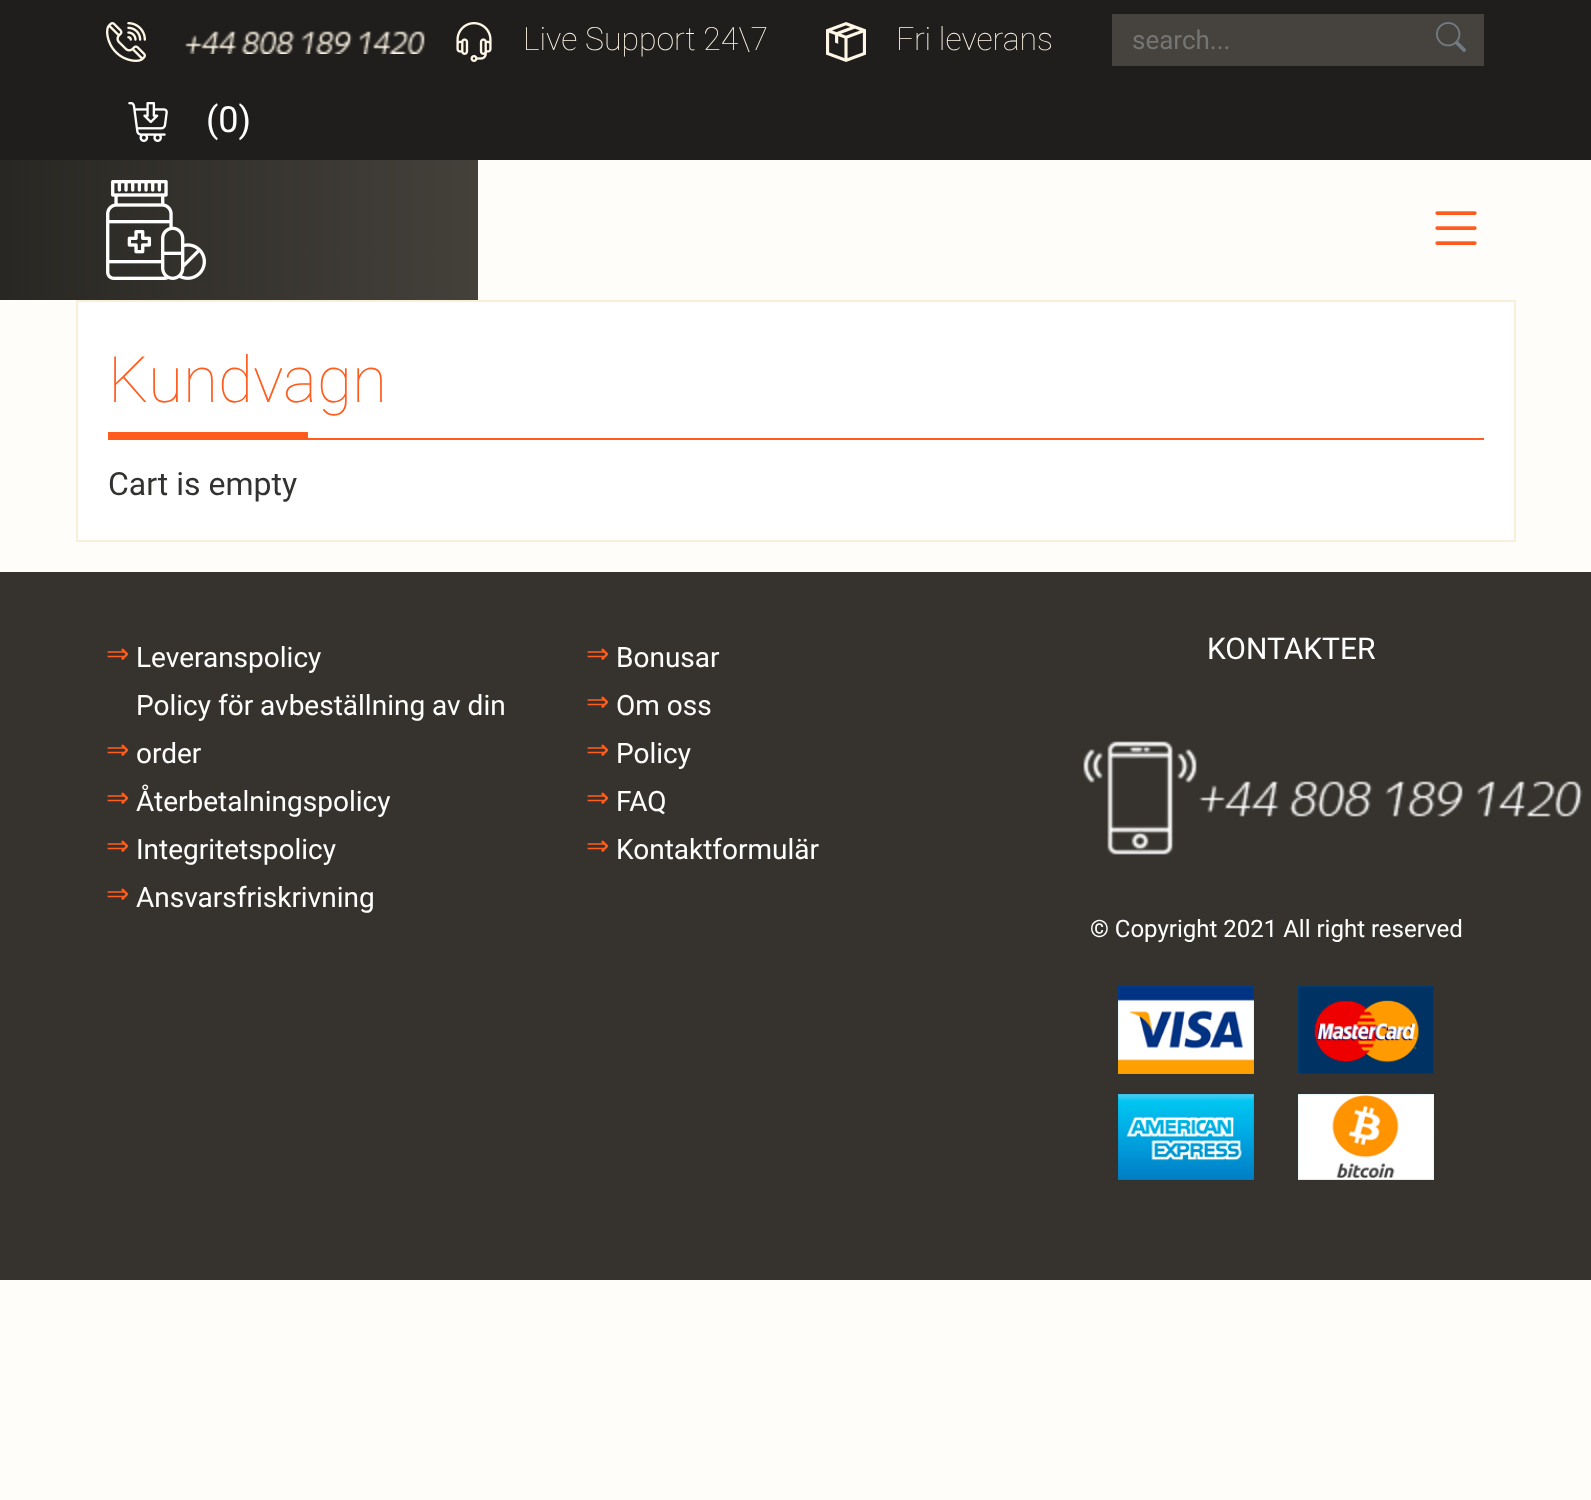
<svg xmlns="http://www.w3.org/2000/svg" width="1591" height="1500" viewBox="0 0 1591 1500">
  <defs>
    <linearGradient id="g1" gradientUnits="userSpaceOnUse" x1="0" y1="150" x2="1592" y2="150"><stop offset="0" stop-color="#292723"/><stop offset="0.3" stop-color="#44413b"/><stop offset="0.3" stop-color="#fffdf9"/></linearGradient>
  </defs>
  <rect width="100%" height="100%" fill="#fffdf9"/>
  <path d="M0 0h1591v160H0z" fill="#1f1e1c"/>
  <image x="106" y="22" width="40" height="40" href="img/1.png"/>
  <image x="185" y="31" width="240" height="23" href="img/2.png"/>
  <image x="456" y="22" width="36" height="40" href="img/3.png"/>
  <image x="826" y="22" width="40" height="40" href="img/4.png"/>
  <path d="M1112 14h372v52H1112z" fill="#46433e"/>
  <image x="1436" y="22" width="30" height="30" href="img/5.png"/>
  <image x="128" y="102" width="40" height="40" href="img/6.png"/>
  <path d="M0 160h478v140H0z" fill="url(#g1)"/>
  <image x="106" y="180" width="100" height="100" href="img/7.png"/>
  <image x="1435" y="211" width="42" height="34" href="img/8.png"/>
  <path d="M77 301h1438v240H77z" fill="#fff" stroke="#f9eeda" stroke-width="2"/>
  <path d="M108 438h1376v2H108z" fill="#ff5c1e"/>
  <path d="M108 432h200v6H108z" fill="#ff5c1e"/>
  <path d="M0 572h1591v708H0z" fill="#36332e"/>
  <image x="1083" y="741" width="500" height="114" href="img/9.png"/>
  <image x="1118" y="986" width="136" height="88" href="img/10.png"/>
  <image x="1298" y="986" width="136" height="88" href="img/11.png"/>
  <image x="1118" y="1094" width="136" height="86" href="img/12.png"/>
  <image x="1298" y="1094" width="136" height="86" href="img/13.png"/>
  <g font-family="Roboto" font-size="32" font-weight="100" fill="#fff7e6">
    <text x="523" y="50">Live Support 24\7</text>
    <text x="896" y="50">Fri leverans</text>
  </g>
  <text x="1132" y="49" font-family="Roboto" font-size="26" fill="#757575">search...</text>
  <text x="206" y="132" font-family="Roboto" font-size="36" fill="#fff">(0)</text>
  <text x="108" y="402" font-family="Roboto" font-size="64" font-weight="100" fill="#ff5c1e">Kundvagn</text>
  <text x="108" y="495" font-family="Roboto" font-size="32" fill="#323230">Cart is empty</text>
  <text x="106" y="663" font-family="DejaVu Sans" font-size="28" fill="#ff5c1e">⇒</text>
  <g font-family="Roboto" font-size="28" fill="#fff">
    <text x="136" y="667">Leveranspolicy</text>
    <text x="136" y="715">Policy för avbeställning av din</text>
  </g>
  <text x="106" y="759" font-family="DejaVu Sans" font-size="28" fill="#ff5c1e">⇒</text>
  <text x="136" y="763" font-family="Roboto" font-size="28" fill="#fff">order</text>
  <text x="106" y="807" font-family="DejaVu Sans" font-size="28" fill="#ff5c1e">⇒</text>
  <text x="136" y="811" font-family="Roboto" font-size="28" fill="#fff">Återbetalningspolicy</text>
  <text x="106" y="855" font-family="DejaVu Sans" font-size="28" fill="#ff5c1e">⇒</text>
  <text x="136" y="859" font-family="Roboto" font-size="28" fill="#fff">Integritetspolicy</text>
  <text x="106" y="903" font-family="DejaVu Sans" font-size="28" fill="#ff5c1e">⇒</text>
  <text x="136" y="907" font-family="Roboto" font-size="28" fill="#fff">Ansvarsfriskrivning</text>
  <text x="586" y="663" font-family="DejaVu Sans" font-size="28" fill="#ff5c1e">⇒</text>
  <text x="616" y="667" font-family="Roboto" font-size="28" fill="#fff">Bonusar</text>
  <text x="586" y="711" font-family="DejaVu Sans" font-size="28" fill="#ff5c1e">⇒</text>
  <text x="616" y="715" font-family="Roboto" font-size="28" fill="#fff">Om oss</text>
  <text x="586" y="759" font-family="DejaVu Sans" font-size="28" fill="#ff5c1e">⇒</text>
  <text x="616" y="763" font-family="Roboto" font-size="28" fill="#fff">Policy</text>
  <text x="586" y="807" font-family="DejaVu Sans" font-size="28" fill="#ff5c1e">⇒</text>
  <text x="616" y="811" font-family="Roboto" font-size="28" fill="#fff">FAQ</text>
  <text x="586" y="855" font-family="DejaVu Sans" font-size="28" fill="#ff5c1e">⇒</text>
  <text x="616" y="859" font-family="Roboto" font-size="28" fill="#fff">Kontaktformulär</text>
  <text x="1207" y="659" font-family="Roboto" font-size="30" fill="#fff">KONTAKTER</text>
  <text x="1090" y="937" font-family="Roboto" font-size="24" fill="#fff">© Copyright 2021 All right reserved</text>
</svg>
